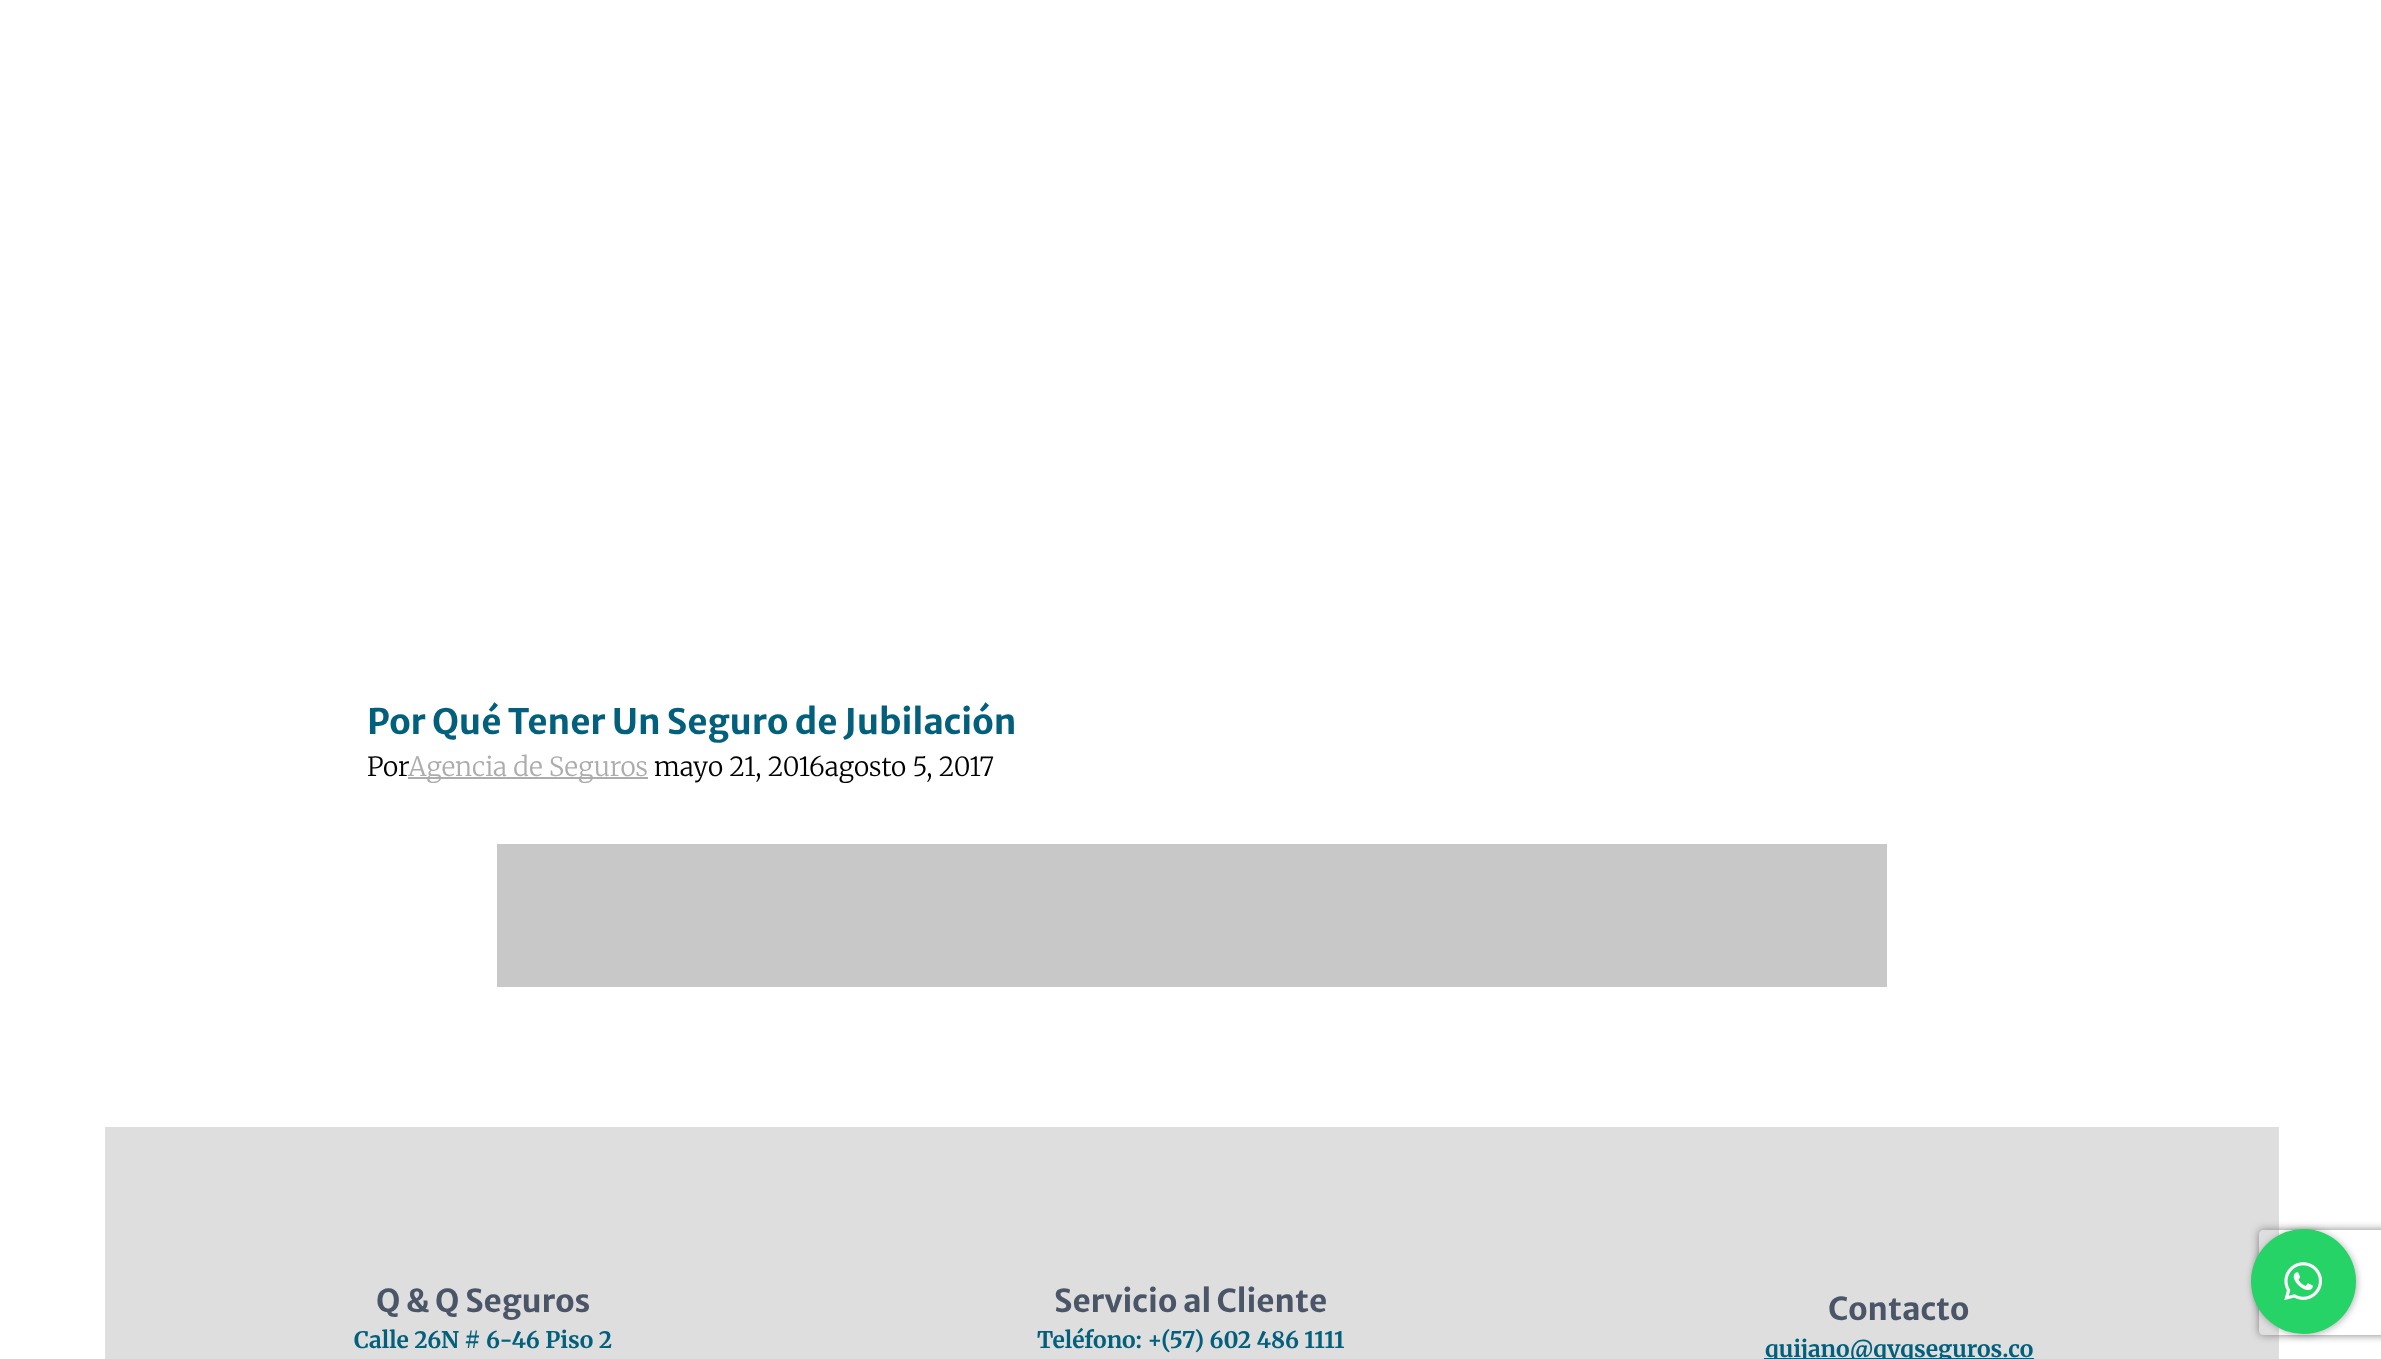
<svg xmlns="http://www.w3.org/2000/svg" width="2381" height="1359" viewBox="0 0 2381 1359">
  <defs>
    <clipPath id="clip1"><path d="M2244 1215H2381V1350H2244ZM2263 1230H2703C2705 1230 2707 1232 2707 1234V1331C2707 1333 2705 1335 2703 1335H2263C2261 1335 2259 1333 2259 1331V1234C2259 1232 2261 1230 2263 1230Z" clip-rule="evenodd"/></clipPath>
  </defs>
  <rect width="100%" height="100%" fill="#fff"/>
  <path d="M497 844h1390v143H497z" fill="#c8c8c8"/>
  <path d="M408 777h240v2H408z" fill="#acacac"/>
  <path d="M105 1127h2174v232H105z" fill="#dedede"/>
  <path d="M1764 1358h270v1H1764z" fill="#02607c"/>
  <g clip-path="url(#clip1)">
    <rect x="2259" y="1230" width="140" height="105" rx="4" fill="#808080" filter="blur(4.5px)"/>
  </g>
  <rect x="2252" y="1230" width="105" height="105" rx="52.5" fill="#0000004d" filter="blur(3.5px)"/>
  <circle cx="2303.5" cy="1281.5" r="52.5" fill="#25d366"/>
  <image x="2284" y="1262" width="38" height="39" href="img/1.png"/>
  <text x="367" y="734" font-family="Merriweather Sans" font-size="35" font-weight="bold" fill="#02607c">Por Qué Tener Un Seguro de Jubilación</text>
  <text x="367" y="776" font-family="Merriweather" font-size="26.25" font-weight="300" fill="#000">Por</text>
  <text x="408" y="776" font-family="Merriweather" font-size="26.25" font-weight="300" fill="#acacac">Agencia de Seguros</text>
  <g font-family="Merriweather" font-size="26.25" font-weight="300" fill="#000">
    <text x="654" y="776">mayo 21, 2016</text>
    <text x="825" y="776">agosto 5, 2017</text>
  </g>
  <text x="376" y="1312" font-family="Merriweather Sans" font-size="31.5" font-weight="bold" fill="#4a5568">Q &amp; Q Seguros</text>
  <text x="354" y="1348" font-family="Merriweather" font-size="22.75" font-weight="bold" fill="#02607c">Calle 26N # 6-46 Piso 2</text>
  <text x="1054" y="1312" font-family="Merriweather Sans" font-size="31.5" font-weight="bold" fill="#4a5568">Servicio al Cliente</text>
  <text x="1037" y="1348" font-family="Merriweather" font-size="22.75" font-weight="bold" fill="#02607c">Teléfono: +(57) 602 486 1111</text>
  <text x="1828" y="1320" font-family="Merriweather Sans" font-size="31.5" font-weight="bold" fill="#4a5568">Contacto</text>
  <text x="1765" y="1357" font-family="Merriweather" font-size="22.75" font-weight="bold" fill="#02607c">quijano@qyqseguros.co</text>
</svg>
